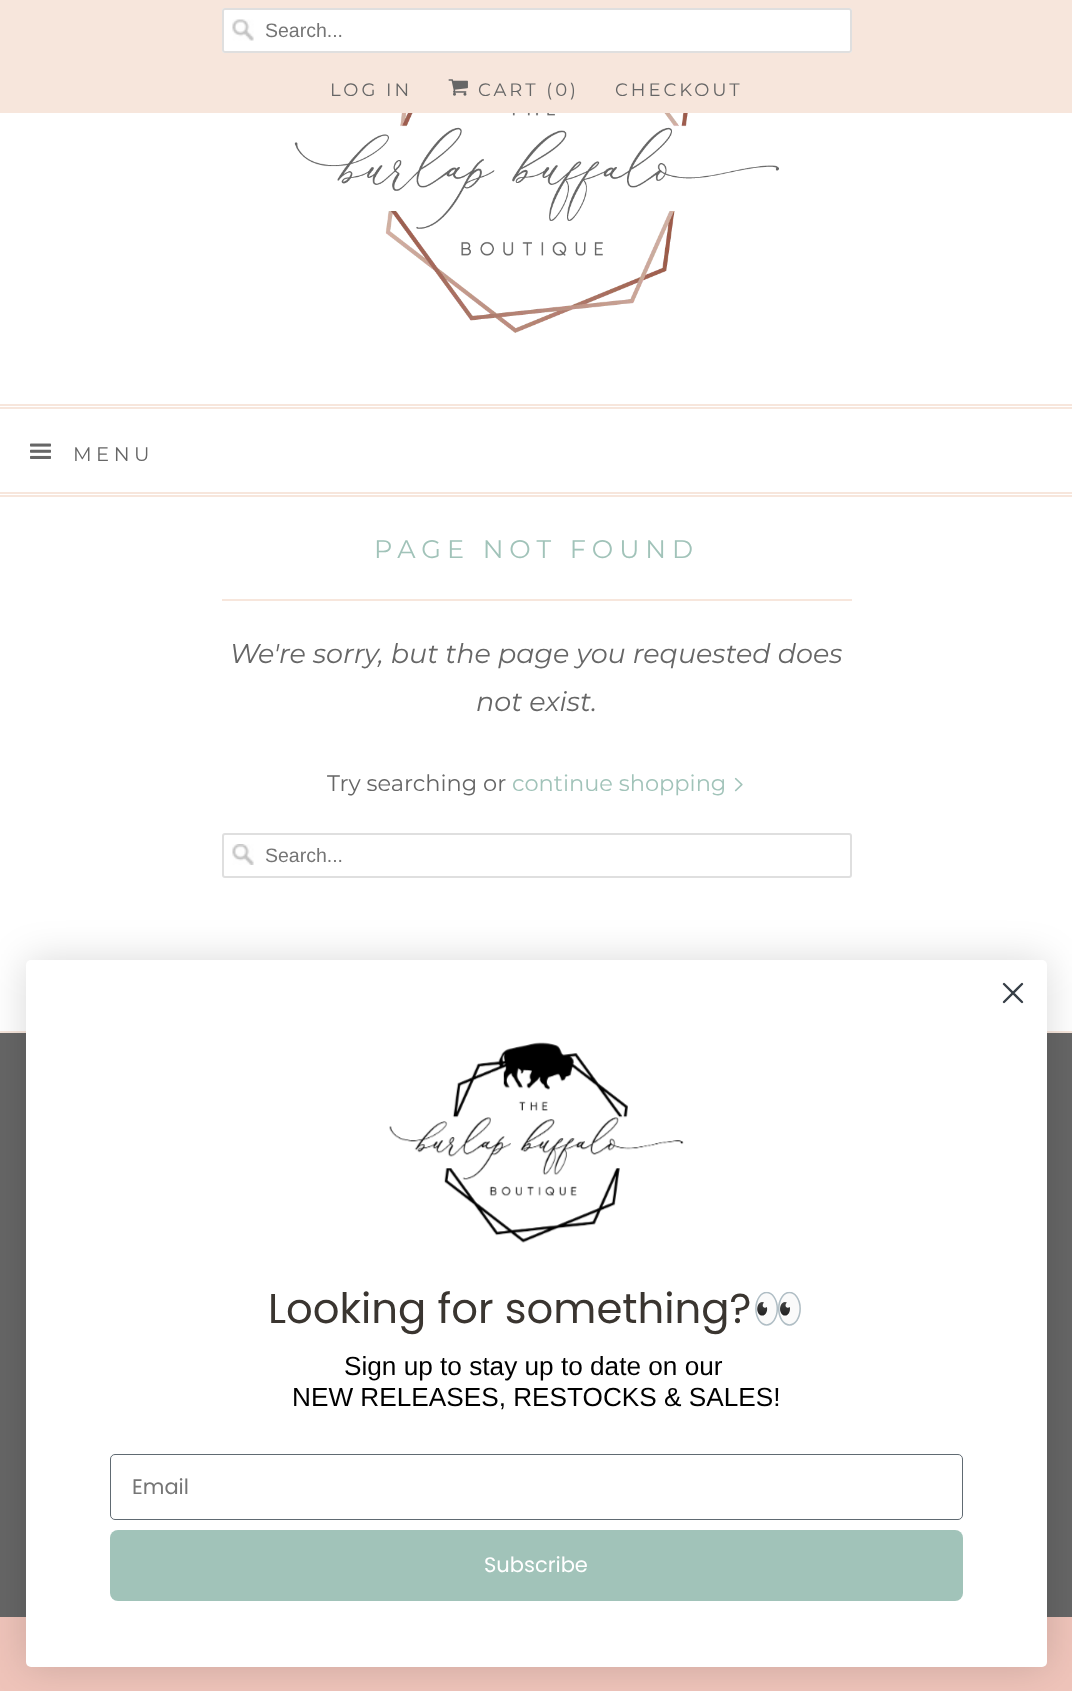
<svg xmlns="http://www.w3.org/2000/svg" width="1072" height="1691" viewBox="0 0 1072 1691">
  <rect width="100%" height="100%" fill="#fff"/>
  <path d="M0 0h1072v113H0z" fill="#f7e6dc"/>
  <rect x="222" y="8" width="630" height="45" rx="3" fill="#fff"/>
  <image x="232" y="19" width="22" height="22" href="img/1.png"/>
  <rect x="223" y="9" width="628" height="43" rx="2" fill="none" stroke="#dfdfdf" stroke-width="2"/>
  <image x="448" y="79" width="20" height="17" href="img/2.png"/>
  <image x="294" y="113" width="485" height="220" href="img/3.png"/>
  <path d="M0 404h1072v2H0z" fill="#f7e6dc"/>
  <path d="M0 407h1072v2H0z" fill="#f7e6dc"/>
  <path d="M0 492h1072v2H0z" fill="#f7e6dc"/>
  <path d="M0 495h1072v2H0z" fill="#f7e6dc"/>
  <image x="30" y="443" width="21" height="16" href="img/4.png"/>
  <path d="M222 599h630v2H222z" fill="#f7e6dc"/>
  <image x="734" y="777" width="9" height="15" href="img/5.png"/>
  <image x="232" y="844" width="22" height="21" href="img/6.png"/>
  <rect x="223" y="834" width="628" height="43" rx="2" fill="none" stroke="#dfdfdf" stroke-width="2"/>
  <path d="M0 1033h1072v584H0z" fill="#666"/>
  <path d="M0 1031h1072v2H0z" fill="#f7e6dc"/>
  <path d="M0 1617h1072v74H0z" fill="#efc4ba"/>
  <rect x="26" y="960" width="1021" height="707" rx="5" fill="#00000026" filter="blur(19.5px)"/>
  <rect x="26" y="960" width="1021" height="707" rx="5" fill="#fff"/>
  <path d="M1004 984L1022 1002M1004 1002L1022 984Z" fill="none" stroke="#373f47" stroke-width="2.3" stroke-linecap="round" stroke-linejoin="round"/>
  <image x="389" y="1042" width="295" height="201" href="img/7.png"/>
  <rect x="110.5" y="1454.5" width="852" height="65" rx="4.5" fill="none" stroke="#606a72"/>
  <rect x="110" y="1530" width="853" height="71" rx="8" fill="#a1c3b9"/>
  <text x="265" y="37" font-family="Liberation Sans" font-size="19.5" fill="#757575">Search...</text>
  <g font-family="Montserrat" font-size="18" letter-spacing="3" fill="#666">
    <text x="330" y="96">LOG IN</text>
    <text x="478" y="96">CART (0)</text>
    <text x="615" y="96">CHECKOUT</text>
  </g>
  <text x="73" y="461" font-family="Montserrat" font-size="19.5" letter-spacing="4.5" fill="#666">MENU</text>
  <text x="374" y="558" font-family="Montserrat" font-size="25.5" letter-spacing="6" fill="#a1c3b9">PAGE NOT FOUND</text>
  <g font-family="Montserrat" font-size="27" font-style="italic" fill="#666">
    <text x="230" y="663">We're sorry, but the page you requested does</text>
    <text x="476" y="711">not exist.</text>
  </g>
  <text x="327" y="791" font-family="Montserrat" font-size="22.5" fill="#666">Try searching or</text>
  <text x="512" y="791" font-family="Montserrat" font-size="22.5" fill="#a1c3b9">continue shopping</text>
  <text x="265" y="862" font-family="Liberation Sans" font-size="19.5" fill="#757575">Search...</text>
  <text x="268" y="1323" font-family="Poppins" font-size="41.8" fill="#3a3530">Looking for something?</text>
  <text x="752" y="1323" font-family="Noto Color Emoji" font-size="41.8" fill="#f576fa">👀</text>
  <g font-family="Liberation Sans" font-size="26.2" fill="#000">
    <text x="344" y="1375">Sign up to stay up to date on our</text>
    <text x="292" y="1406">NEW RELEASES, RESTOCKS &amp; SALES!</text>
  </g>
  <text x="132" y="1494" font-family="Poppins" font-size="21" fill="#757575">Email</text>
  <text x="484" y="1572" font-family="Poppins" font-size="21" fill="#fff">Subscribe</text>
</svg>
